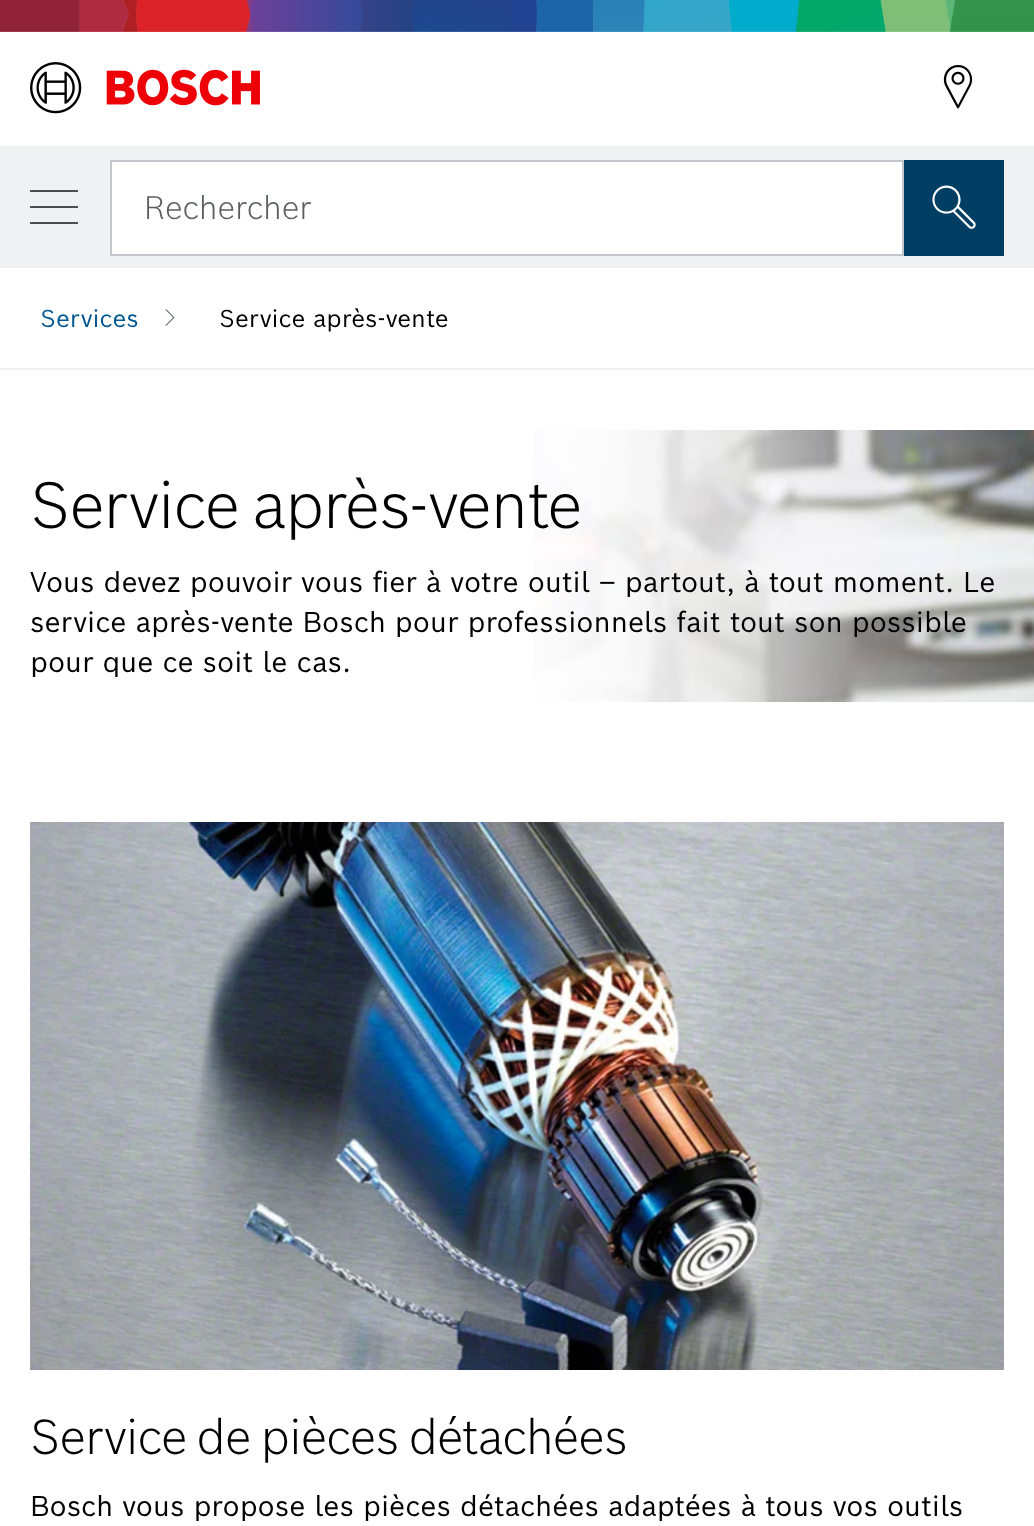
<svg xmlns="http://www.w3.org/2000/svg" width="1034" height="1526" viewBox="0 0 1034 1526">
  <rect width="100%" height="100%" fill="#fff"/>
  <image x="0" y="0" width="1034" height="32" href="img/1.png"/>
  <path d="M0 146h1034v120H0z" fill="#eff1f2"/>
  <path d="M30 190h48v2H30z" fill="#4d4d4d"/>
  <path d="M30 206h48v2H30z" fill="#4d4d4d"/>
  <path d="M30 222h48v2H30z" fill="#4d4d4d"/>
  <image x="30" y="62" width="230" height="52" href="img/2.png"/>
  <image x="943" y="65" width="30" height="44" href="img/3.png"/>
  <path d="M111 161h792v94H111z" fill="#fff" stroke="#c1c7cc" stroke-width="2"/>
  <path d="M904 160h100v96H904z" fill="#003e64"/>
  <image x="932" y="185" width="44" height="44" href="img/4.png"/>
  <path d="M0 266h1034v2H0z" fill="#efeff0"/>
  <path d="M0 368h1034v2H0z" fill="#efeff0"/>
  <image x="165" y="309" width="10" height="17" href="img/5.png"/>
  <image x="533" y="430" width="501" height="272" href="img/6.png"/>
  <image x="30" y="822" width="974" height="548" href="img/7.png"/>
  <text x="144" y="219" font-family="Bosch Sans" font-size="32" font-weight="300" fill="#595e62">Rechercher</text>
  <text x="40" y="327" font-family="Bosch Sans" font-size="24" fill="#005691">Services</text>
  <text x="219" y="327" font-family="Bosch Sans" font-size="24" fill="#000">Service après-vente</text>
  <text x="30" y="528" font-family="Bosch Sans" font-size="64" font-weight="300" letter-spacing="-1.25" fill="#000">Service après-vente</text>
  <g font-family="Bosch Sans" font-size="28" fill="#000">
    <text x="30" y="592">Vous devez pouvoir vous fier à votre outil – partout, à tout moment. Le</text>
    <text x="30" y="632">service après-vente Bosch pour professionnels fait tout son possible</text>
    <text x="30" y="672">pour que ce soit le cas.</text>
  </g>
  <text x="30" y="1454" font-family="Bosch Sans" font-size="48" font-weight="300" letter-spacing="-0.95" fill="#000">Service de pièces détachées</text>
  <text x="30" y="1516" font-family="Bosch Sans" font-size="28" fill="#000">Bosch vous propose les pièces détachées adaptées à tous vos outils</text>
</svg>
